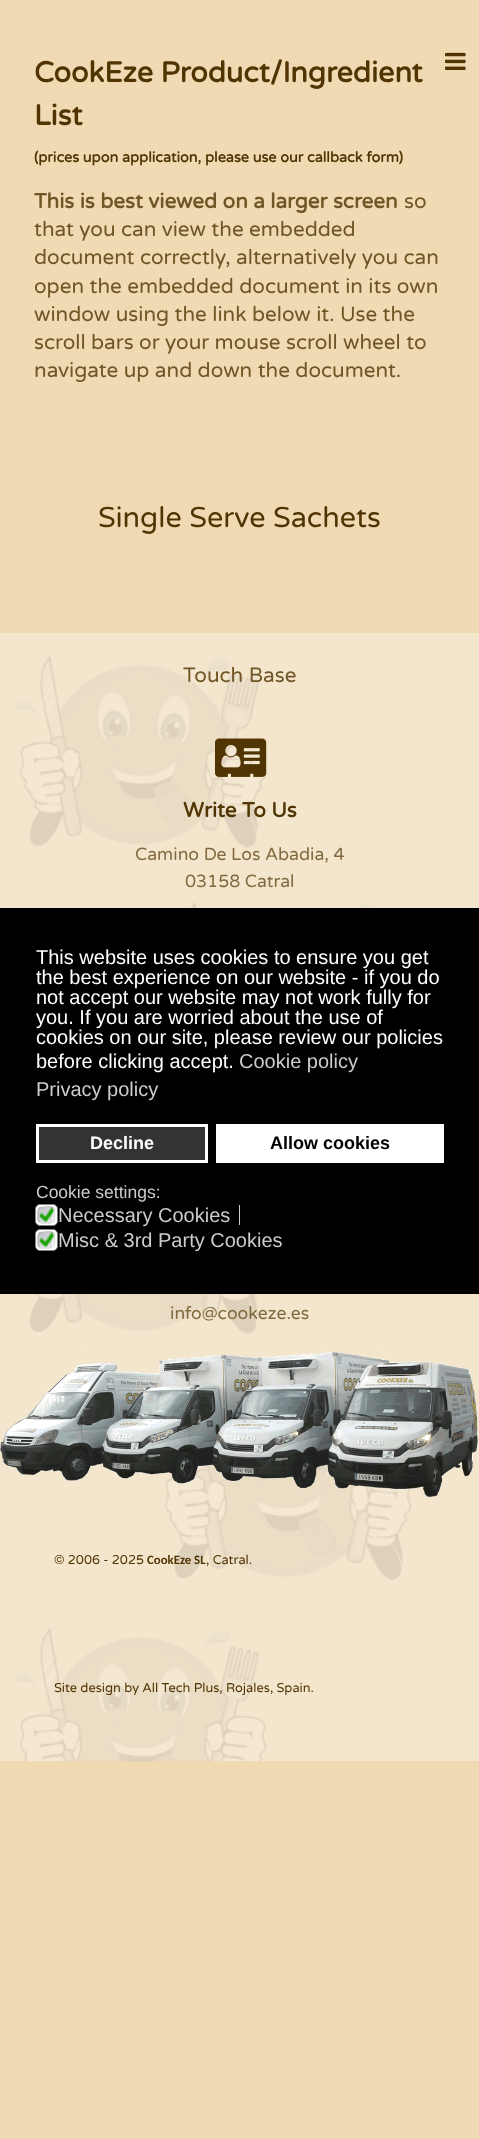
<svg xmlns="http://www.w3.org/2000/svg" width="479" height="2139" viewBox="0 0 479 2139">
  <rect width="100%" height="100%" fill="#efdab4"/>
  <image x="445" y="52" width="21" height="18" href="img/1.png"/>
  <path d="M0 633h479v1128H0z" fill="#f4e6cd"/>
  <image x="16" y="656" width="396" height="1106" href="img/2.png"/>
  <image x="215" y="738" width="52" height="39" href="img/3.png"/>
  <image x="0" y="1347" width="478" height="151" href="img/4.png"/>
  <path d="M0 908h479v386H0z" fill="#000"/>
  <path d="M37.5 1125.5h169v36H37.5z" fill="#333" stroke="#fff" stroke-width="3"/>
  <path d="M216 1124h228v39H216z" fill="#fff"/>
  <rect x="35.5" y="1204.5" width="22" height="21" rx="4.5" fill="#fff" stroke="#808080"/>
  <image x="37" y="1206" width="19" height="18" href="img/5.png"/>
  <path d="M53 1208C55 1210 54.5 1212.5 54.5 1215C54.5 1223.5 53 1223 45 1223C43 1223 41 1223.5 39.5 1222" fill="none" stroke="#dcddde" stroke-width="1.2"/>
  <path d="M39.5 1222C38 1220.5 38 1218.5 38 1216C38 1208 37.5 1207 46 1207C48.5 1207 51.5 1206.5 53 1208" fill="none" stroke="#b3b3b3" stroke-width="1.2"/>
  <path d="M239 1205h1v20H239z" fill="#ccc"/>
  <rect x="35.5" y="1229.5" width="22" height="21" rx="4.5" fill="#fff" stroke="#808080"/>
  <image x="37" y="1231" width="19" height="18" href="img/6.png"/>
  <path d="M53 1233C54.5 1234.5 54.5 1236.5 54.5 1239C54.5 1247 55 1248 46 1248C44 1248 41 1248.5 39.5 1247" fill="none" stroke="#dcddde" stroke-width="1.2"/>
  <path d="M39.5 1247C38 1245.5 38 1243.5 38 1241C38 1233 37.5 1232 46 1232C48.5 1232 51.5 1231.5 53 1233" fill="none" stroke="#b3b3b3" stroke-width="1.2"/>
  <g font-family="Varela Round" font-size="28.75" font-weight="bold" fill="#503503">
    <text x="34" y="82">CookEze Product/Ingredient</text>
    <text x="34" y="125">List</text>
  </g>
  <text x="34" y="162" font-family="Varela Round" font-size="14.4" font-weight="bold" fill="#503503">(prices upon application, please use our callback form)</text>
  <text x="34" y="208" font-family="Varela Round" font-size="20.75" font-weight="bold" fill="#705626">This is best viewed on a larger screen</text>
  <g font-family="Varela Round" font-size="20.75" fill="#705626">
    <text x="404" y="208">so</text>
    <text x="34" y="236">that you can view the embedded</text>
    <text x="34" y="264">document correctly, alternatively you can</text>
    <text x="34" y="293">open the embedded document in its own</text>
    <text x="34" y="321">window using the link below it. Use the</text>
    <text x="34" y="349">scroll bars or your mouse scroll wheel to</text>
    <text x="34" y="377">navigate up and down the document.</text>
  </g>
  <text x="98" y="527" font-family="Varela Round" font-size="28.75" fill="#503503">Single Serve Sachets</text>
  <text x="183" y="682" font-family="Varela Round" font-size="20.75" fill="#705626">Touch Base</text>
  <text x="183" y="817" font-family="Varela Round" font-size="20.75" font-weight="bold" fill="#503503">Write To Us</text>
  <g font-family="Varela Round" font-size="17.6" fill="#816a40">
    <text x="135" y="860">Camino De Los Abadia, 4</text>
    <text x="185" y="887">03158 Catral</text>
    <text x="170" y="1319">info@cookeze.es</text>
  </g>
  <text x="54" y="1564" font-family="Varela Round" font-size="12.8" fill="#503503">© 2006 - 2025</text>
  <text x="147" y="1564" font-family="Carlito" font-size="12.8" font-weight="bold" fill="#503503">CookEze SL</text>
  <g font-family="Varela Round" font-size="12.8" fill="#503503">
    <text x="206" y="1564">, Catral.</text>
    <text x="54" y="1692">Site design by All Tech Plus, Rojales, Spain.</text>
  </g>
  <g font-family="Liberation Sans" font-size="20" fill="#fff">
    <text x="36" y="964">This website uses cookies to ensure you get</text>
    <text x="36" y="984">the best experience on our website - if you do</text>
    <text x="36" y="1004">not accept our website may not work fully for</text>
    <text x="36" y="1024">you. If you are worried about the use of</text>
    <text x="36" y="1044">cookies on our site, please review our policies</text>
    <text x="36" y="1068">before clicking accept.</text>
  </g>
  <g font-family="Liberation Sans" font-size="20" fill="#ccc">
    <text x="239" y="1068">Cookie policy</text>
    <text x="36" y="1096">Privacy policy</text>
  </g>
  <text x="90" y="1149" font-family="Liberation Sans" font-size="18" font-weight="bold" fill="#fff">Decline</text>
  <text x="270" y="1149" font-family="Liberation Sans" font-size="18" font-weight="bold" fill="#000">Allow cookies</text>
  <text x="36" y="1198" font-family="Liberation Sans" font-size="17.5" fill="#ccc">Cookie settings:</text>
  <g font-family="Liberation Sans" font-size="20" fill="#ccc">
    <text x="58" y="1222">Necessary Cookies</text>
    <text x="58" y="1247">Misc &amp; 3rd Party Cookies</text>
  </g>
</svg>
